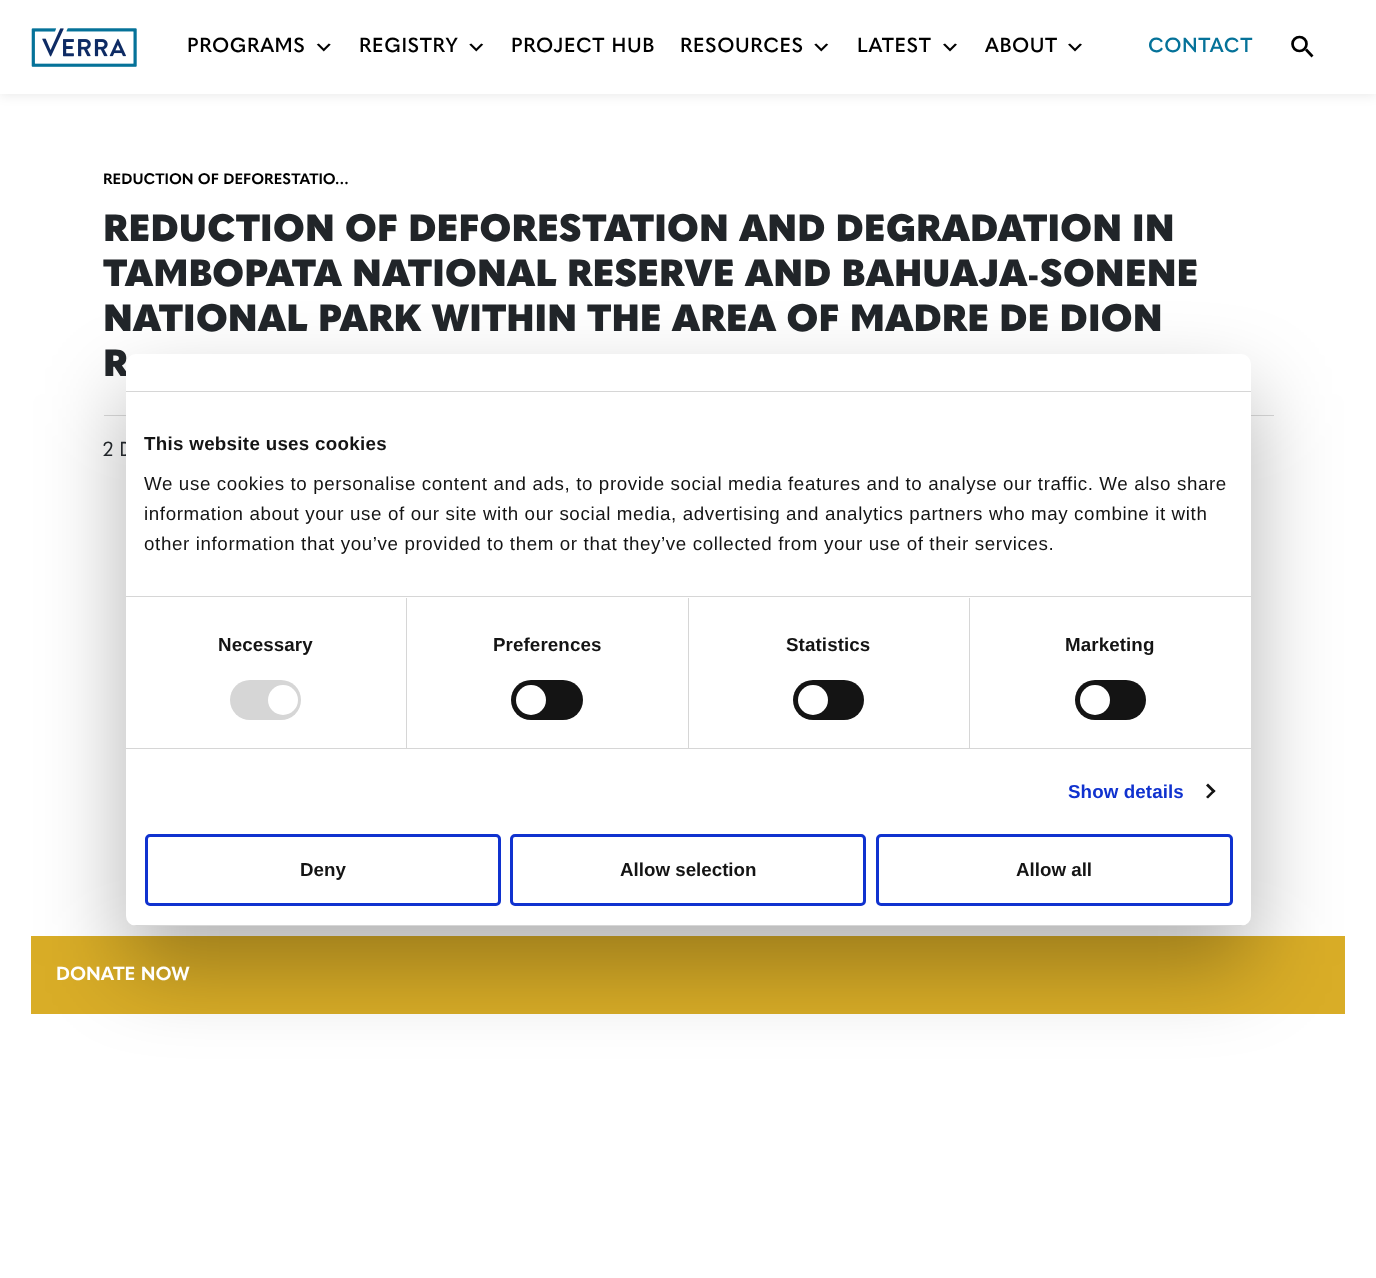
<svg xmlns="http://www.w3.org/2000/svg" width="1376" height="1278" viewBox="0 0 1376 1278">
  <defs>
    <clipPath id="clip1"><rect x="126" y="354" width="1125" height="572" rx="10"/></clipPath>
  </defs>
  <rect width="100%" height="100%" fill="#fff"/>
  <path d="M0 3h1376v93H0z" fill="#00000014" filter="blur(5.5px)"/>
  <path d="M0 0h1376v94H0z" fill="#fff"/>
  <image x="31" y="28" width="106" height="39" href="img/1.png"/>
  <image x="316" y="43" width="15" height="9" href="img/2.png"/>
  <image x="469" y="43" width="15" height="9" href="img/3.png"/>
  <image x="814" y="43" width="15" height="9" href="img/3.png"/>
  <image x="943" y="43" width="14" height="9" href="img/4.png"/>
  <image x="1068" y="43" width="14" height="9" href="img/4.png"/>
  <circle cx="1299.5" cy="44" r="7" fill="none" stroke="#000" stroke-width="2.7"/>
  <path d="M1306 49.5L1312.5 56.5" fill="none" stroke="#000" stroke-width="2.7"/>
  <path d="M104 415h1170v1H104z" fill="#dbdbdb"/>
  <path d="M31 936h1314v78H31z" fill="#d9ad27"/>
  <rect x="126" y="394" width="1125" height="572" rx="10" fill="#0000004d" filter="blur(42.5px)"/>
  <g font-family="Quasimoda" font-size="20" font-weight="600" letter-spacing="0.62" fill="#000">
    <text x="187" y="52">PROGRAMS</text>
    <text x="359" y="52">REGISTRY</text>
    <text x="511" y="52">PROJECT HUB</text>
    <text x="680" y="52">RESOURCES</text>
    <text x="857" y="52">LATEST</text>
    <text x="985" y="52">ABOUT</text>
  </g>
  <text x="1148" y="52" font-family="Quasimoda" font-size="20" font-weight="600" letter-spacing="0.62" fill="#057299">CONTACT</text>
  <text x="103" y="184" font-family="Quasimoda" font-size="15" font-weight="bold" fill="#000">REDUCTION OF DEFORESTATIO…</text>
  <g font-family="Quasimoda" font-size="37.5" font-weight="900" fill="#212529">
    <text x="103" y="241">REDUCTION OF DEFORESTATION AND DEGRADATION IN</text>
    <text x="103" y="286">TAMBOPATA NATIONAL RESERVE AND BAHUAJA-SONENE</text>
    <text x="103" y="331">NATIONAL PARK WITHIN THE AREA OF MADRE DE DION</text>
    <text x="103" y="376">R</text>
  </g>
  <text x="103" y="456" font-family="Quasimoda" font-size="20" fill="#212529">2 D</text>
  <rect x="126" y="354" width="1125" height="572" rx="10" fill="#fff"/>
  <path d="M126 391h1125v1H126z" fill="#d6d6d6"/>
  <path d="M126 596h1125v1H126z" fill="#d6d6d6"/>
  <text x="144" y="450" font-family="Liberation Sans" font-size="18.75" font-weight="bold" letter-spacing="0.3" fill="#141414">This website uses cookies</text>
  <g font-family="Liberation Sans" font-size="18.75" letter-spacing="0.62" fill="#141414">
    <text x="144" y="490">We use cookies to personalise content and ads, to provide social media features and to analyse our traffic. We also share</text>
    <text x="144" y="520">information about your use of our site with our social media, advertising and analytics partners who may combine it with</text>
    <text x="144" y="550">other information that you’ve provided to them or that they’ve collected from your use of their services.</text>
  </g>
  <path d="M126 748h1125v1H126z" fill="#d6d6d6"/>
  <path d="M406 598h1v150H406z" fill="#d6d6d6"/>
  <text x="218" y="651" font-family="Liberation Sans" font-size="18.75" font-weight="bold" letter-spacing="0.1" fill="#141414">Necessary</text>
  <rect x="230" y="680" width="71" height="40" rx="20" fill="#d6d6d6"/>
  <circle cx="283" cy="700" r="15" fill="#fff"/>
  <path d="M688 598h1v150H688z" fill="#d6d6d6"/>
  <text x="493" y="651" font-family="Liberation Sans" font-size="18.75" font-weight="bold" letter-spacing="0.1" fill="#141414">Preferences</text>
  <rect x="511" y="680" width="72" height="40" rx="20" fill="#141414"/>
  <circle cx="531" cy="700" r="15" fill="#fff"/>
  <path d="M969 598h1v150H969z" fill="#d6d6d6"/>
  <text x="786" y="651" font-family="Liberation Sans" font-size="18.75" font-weight="bold" letter-spacing="0.1" fill="#141414">Statistics</text>
  <rect x="793" y="680" width="71" height="40" rx="20" fill="#141414"/>
  <circle cx="813" cy="700" r="15" fill="#fff"/>
  <text x="1065" y="651" font-family="Liberation Sans" font-size="18.75" font-weight="bold" letter-spacing="0.1" fill="#141414">Marketing</text>
  <rect x="1075" y="680" width="71" height="40" rx="20" fill="#141414"/>
  <circle cx="1095" cy="700" r="15" fill="#fff"/>
  <text x="1068" y="798" font-family="Liberation Sans" font-size="18.75" font-weight="bold" letter-spacing="0.1" fill="#1032cf">Show details</text>
  <path d="M1208 783.5L1215.5 791L1213.5 793L1206 785.5Z" fill="#141414"/>
  <path d="M1213.5 789.5L1215.5 791L1208 798.5L1206 797Z" fill="#141414"/>
  <g clip-path="url(#clip1)">
    <path d="M126 925h1125v1H126z" fill="#d6d6d6"/>
  </g>
  <rect x="146.5" y="835.5" width="353" height="69" rx="3.5" fill="none" stroke="#1032cf" stroke-width="3"/>
  <text x="300" y="876" font-family="Liberation Sans" font-size="18.75" font-weight="bold" fill="#141414">Deny</text>
  <rect x="511.5" y="835.5" width="353" height="69" rx="3.5" fill="none" stroke="#1032cf" stroke-width="3"/>
  <text x="620" y="876" font-family="Liberation Sans" font-size="18.75" font-weight="bold" fill="#141414">Allow selection</text>
  <rect x="877.5" y="835.5" width="354" height="69" rx="3.5" fill="none" stroke="#1032cf" stroke-width="3"/>
  <text x="1016" y="876" font-family="Liberation Sans" font-size="18.75" font-weight="bold" fill="#141414">Allow all</text>
  <text x="56" y="980" font-family="Quasimoda" font-size="18.75" font-weight="bold" fill="#fff">DONATE NOW</text>
</svg>
